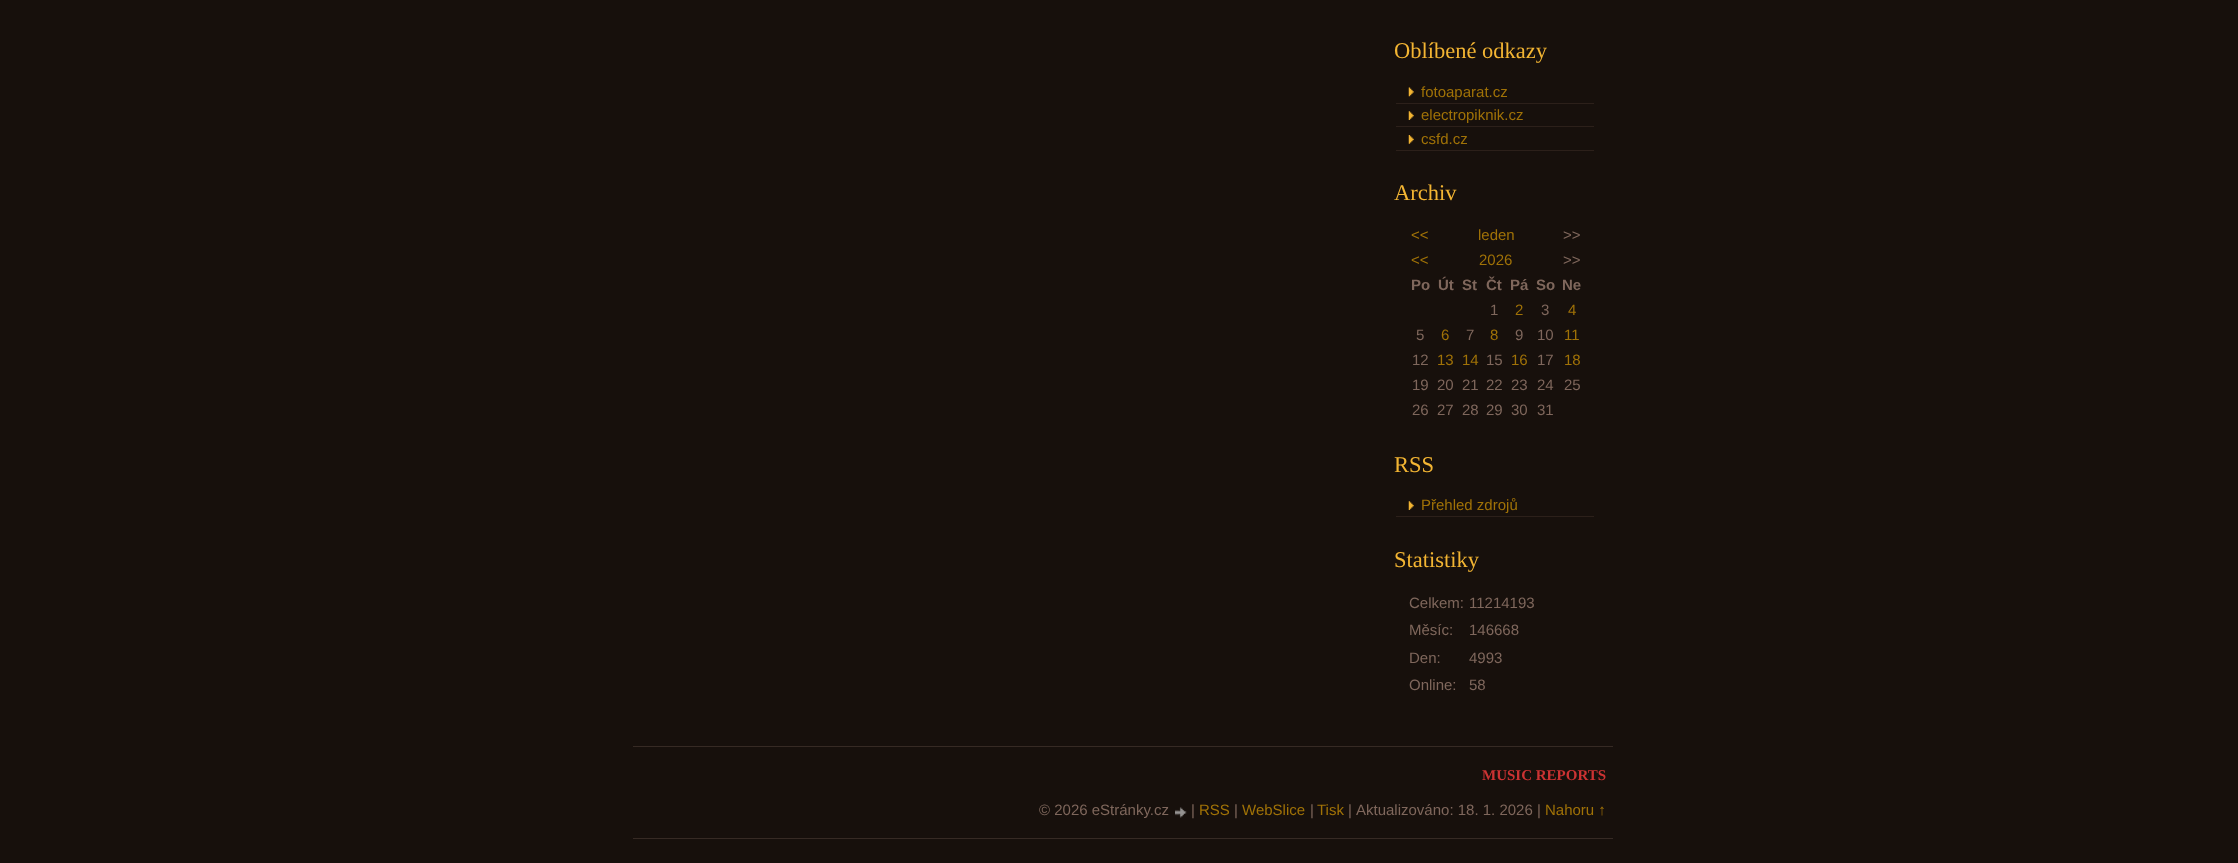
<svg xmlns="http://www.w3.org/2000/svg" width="2238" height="863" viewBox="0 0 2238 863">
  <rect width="100%" height="100%" fill="#17100c"/>
  <image x="1408" y="87" width="6" height="10" href="img/1.png"/>
  <path d="M1396 103h198v1H1396z" fill="#2c201a"/>
  <image x="1408" y="111" width="6" height="9" href="img/2.png"/>
  <path d="M1396 126h198v1H1396z" fill="#2c201a"/>
  <image x="1408" y="135" width="6" height="9" href="img/3.png"/>
  <path d="M1396 150h198v1H1396z" fill="#2c201a"/>
  <image x="1408" y="501" width="6" height="9" href="img/2.png"/>
  <path d="M1396 516h198v1H1396z" fill="#2c201a"/>
  <path d="M633 746h980v1H633z" fill="#362a24"/>
  <path d="M633 838h980v1H633z" fill="#362a24"/>
  <image x="1175" y="807" width="12" height="11" href="img/4.png"/>
  <text x="1394" y="58" font-family="Liberation Serif" font-size="22.5" fill="#f3b533">Oblíbené odkazy</text>
  <g font-family="Liberation Sans" font-size="15" fill="#a07207">
    <text x="1421" y="97">fotoaparat.cz</text>
    <text x="1421" y="120">electropiknik.cz</text>
    <text x="1421" y="144">csfd.cz</text>
  </g>
  <text x="1394" y="200" font-family="Liberation Serif" font-size="22.5" fill="#f3b533">Archiv</text>
  <g font-family="Liberation Sans" font-size="15" fill="#a07207">
    <text x="1411" y="240">&lt;&lt;</text>
    <text x="1478" y="240">leden</text>
  </g>
  <text x="1563" y="240" font-family="Liberation Sans" font-size="15" fill="#7f675c">&gt;&gt;</text>
  <g font-family="Liberation Sans" font-size="15" fill="#a07207">
    <text x="1411" y="265">&lt;&lt;</text>
    <text x="1479" y="265">2026</text>
  </g>
  <text x="1563" y="265" font-family="Liberation Sans" font-size="15" fill="#7f675c">&gt;&gt;</text>
  <g font-family="Liberation Sans" font-size="15" font-weight="bold" fill="#7f675c">
    <text x="1411" y="290">Po</text>
    <text x="1438" y="290">Út</text>
    <text x="1462" y="290">St</text>
    <text x="1486" y="290">Čt</text>
    <text x="1510" y="290">Pá</text>
    <text x="1536" y="290">So</text>
    <text x="1562" y="290">Ne</text>
  </g>
  <text x="1490" y="315" font-family="Liberation Sans" font-size="15" fill="#7f675c">1</text>
  <text x="1515" y="315" font-family="Liberation Sans" font-size="15" fill="#a07207">2</text>
  <text x="1541" y="315" font-family="Liberation Sans" font-size="15" fill="#7f675c">3</text>
  <text x="1568" y="315" font-family="Liberation Sans" font-size="15" fill="#a07207">4</text>
  <text x="1416" y="340" font-family="Liberation Sans" font-size="15" fill="#7f675c">5</text>
  <text x="1441" y="340" font-family="Liberation Sans" font-size="15" fill="#a07207">6</text>
  <text x="1466" y="340" font-family="Liberation Sans" font-size="15" fill="#7f675c">7</text>
  <text x="1490" y="340" font-family="Liberation Sans" font-size="15" fill="#a07207">8</text>
  <g font-family="Liberation Sans" font-size="15" fill="#7f675c">
    <text x="1515" y="340">9</text>
    <text x="1537" y="340">10</text>
  </g>
  <text x="1564" y="340" font-family="Liberation Sans" font-size="15" fill="#a07207">11</text>
  <text x="1412" y="365" font-family="Liberation Sans" font-size="15" fill="#7f675c">12</text>
  <g font-family="Liberation Sans" font-size="15" fill="#a07207">
    <text x="1437" y="365">13</text>
    <text x="1462" y="365">14</text>
  </g>
  <text x="1486" y="365" font-family="Liberation Sans" font-size="15" fill="#7f675c">15</text>
  <text x="1511" y="365" font-family="Liberation Sans" font-size="15" fill="#a07207">16</text>
  <text x="1537" y="365" font-family="Liberation Sans" font-size="15" fill="#7f675c">17</text>
  <text x="1564" y="365" font-family="Liberation Sans" font-size="15" fill="#a07207">18</text>
  <g font-family="Liberation Sans" font-size="15" fill="#7f675c">
    <text x="1412" y="390">19</text>
    <text x="1437" y="390">20</text>
    <text x="1462" y="390">21</text>
    <text x="1486" y="390">22</text>
    <text x="1511" y="390">23</text>
    <text x="1537" y="390">24</text>
    <text x="1564" y="390">25</text>
    <text x="1412" y="415">26</text>
    <text x="1437" y="415">27</text>
    <text x="1462" y="415">28</text>
    <text x="1486" y="415">29</text>
    <text x="1511" y="415">30</text>
    <text x="1537" y="415">31</text>
  </g>
  <text x="1394" y="472" font-family="Liberation Serif" font-size="22.5" fill="#f3b533">RSS</text>
  <text x="1421" y="510" font-family="Liberation Sans" font-size="15" fill="#a07207">Přehled zdrojů</text>
  <text x="1394" y="567" font-family="Liberation Serif" font-size="22.5" fill="#f3b533">Statistiky</text>
  <g font-family="Liberation Sans" font-size="15" fill="#7f675c">
    <text x="1409" y="608">Celkem:</text>
    <text x="1469" y="608">11214193</text>
    <text x="1409" y="635">Měsíc:</text>
    <text x="1469" y="635">146668</text>
    <text x="1409" y="663">Den:</text>
    <text x="1469" y="663">4993</text>
    <text x="1409" y="690">Online:</text>
    <text x="1469" y="690">58</text>
  </g>
  <text x="1482" y="780" font-family="Liberation Serif" font-size="15" font-weight="bold" fill="#c33">MUSIC REPORTS</text>
  <g font-family="Liberation Sans" font-size="15" fill="#7f675c">
    <text x="1039" y="815">© 2026 eStránky.cz</text>
    <text x="1191" y="815">|</text>
  </g>
  <text x="1199" y="815" font-family="Liberation Sans" font-size="15" fill="#a07207">RSS</text>
  <text x="1234" y="815" font-family="Liberation Sans" font-size="15" fill="#7f675c">|</text>
  <text x="1242" y="815" font-family="Liberation Sans" font-size="15" fill="#a07207">WebSlice</text>
  <text x="1310" y="815" font-family="Liberation Sans" font-size="15" fill="#7f675c">|</text>
  <text x="1317" y="815" font-family="Liberation Sans" font-size="15" fill="#a07207">Tisk</text>
  <g font-family="Liberation Sans" font-size="15" fill="#7f675c">
    <text x="1348" y="815">|</text>
    <text x="1356" y="815">Aktualizováno: 18. 1. 2026 |</text>
  </g>
  <text x="1545" y="815" font-family="Liberation Sans" font-size="15" fill="#a07207">Nahoru ↑</text>
</svg>
